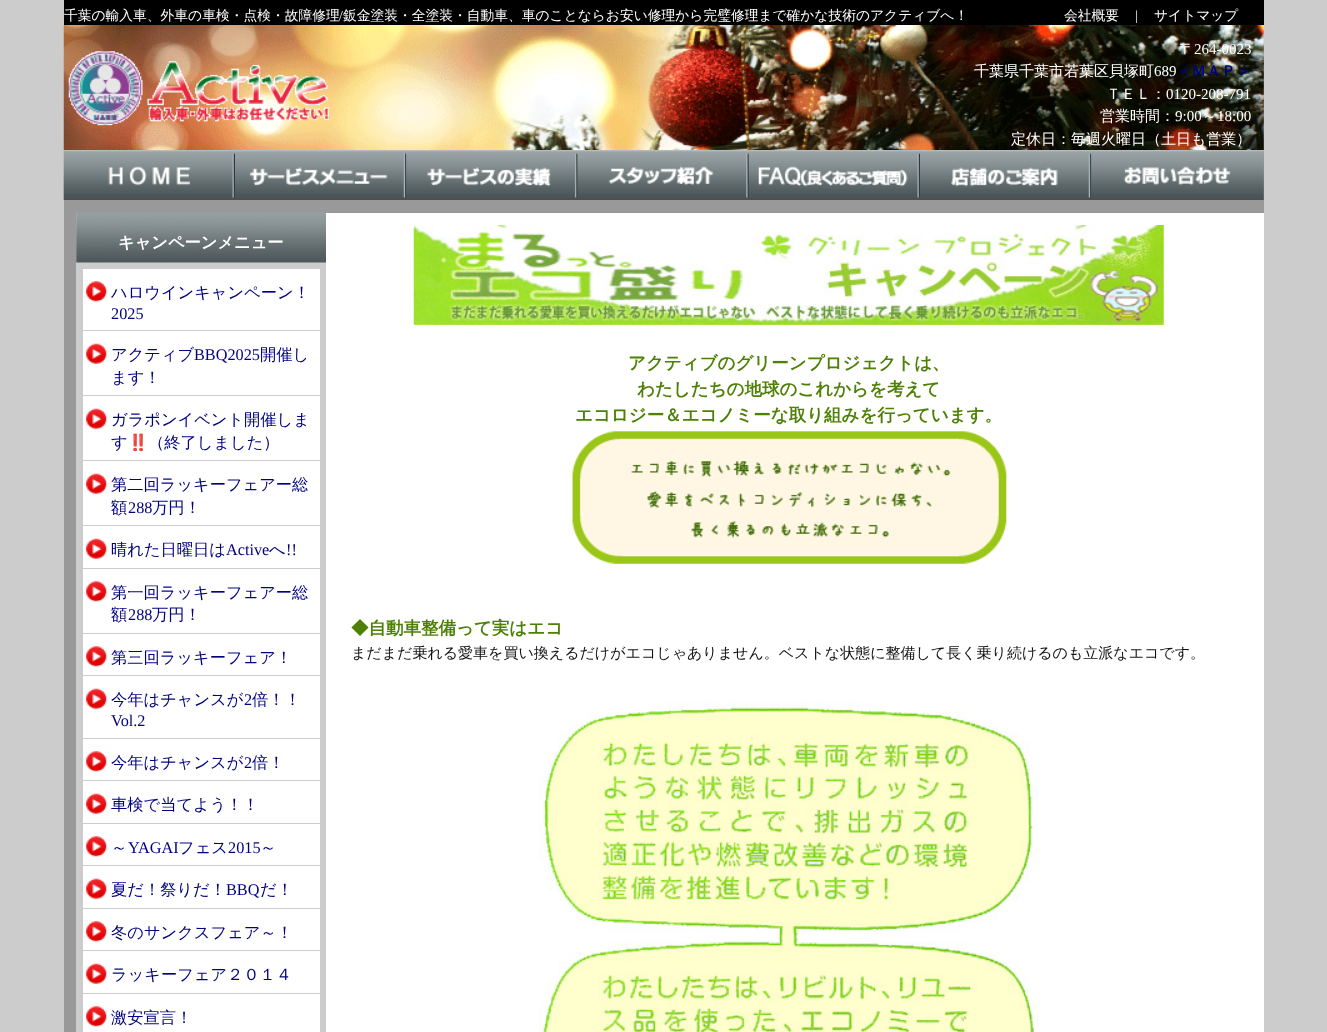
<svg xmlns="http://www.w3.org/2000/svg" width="1327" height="1032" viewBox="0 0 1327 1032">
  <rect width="100%" height="100%" fill="#ccc"/>
  <path d="M64 25h1200v1007H64z" fill="#999"/>
  <path d="M64 0h1200v25H64z" fill="#000"/>
  <image x="63" y="25" width="1201" height="125" href="img/1.png"/>
  <image x="68" y="51" width="261" height="75" href="img/2.png"/>
  <image x="63" y="150" width="1201" height="50" href="img/3.png"/>
  <image x="63" y="154" width="172" height="46" href="img/4.png"/>
  <image x="235" y="153" width="172" height="47" href="img/5.png"/>
  <image x="406" y="153" width="172" height="47" href="img/6.png"/>
  <image x="577" y="153" width="172" height="47" href="img/7.png"/>
  <image x="748" y="153" width="172" height="47" href="img/8.png"/>
  <image x="920" y="153" width="172" height="47" href="img/9.png"/>
  <image x="1091" y="153" width="172" height="47" href="img/10.png"/>
  <path d="M76 213h250v819H76z" fill="#ccc"/>
  <image x="76" y="212" width="251" height="51" href="img/11.png"/>
  <path d="M83 269h237v61H83z" fill="#fff"/>
  <image x="86" y="281" width="21" height="21" href="img/12.png"/>
  <path d="M83 331h237v64H83z" fill="#fff"/>
  <image x="86" y="343" width="21" height="21" href="img/13.png"/>
  <path d="M83 396h237v64H83z" fill="#fff"/>
  <image x="86" y="408" width="21" height="21" href="img/13.png"/>
  <path d="M83 461h237v64H83z" fill="#fff"/>
  <image x="86" y="473" width="21" height="21" href="img/13.png"/>
  <path d="M83 526h237v42H83z" fill="#fff"/>
  <image x="86" y="538" width="21" height="21" href="img/13.png"/>
  <path d="M83 569h237v64H83z" fill="#fff"/>
  <image x="86" y="581" width="21" height="21" href="img/14.png"/>
  <path d="M83 634h237v41H83z" fill="#fff"/>
  <image x="86" y="646" width="21" height="21" href="img/15.png"/>
  <path d="M83 676h237v62H83z" fill="#fff"/>
  <image x="86" y="688" width="21" height="21" href="img/13.png"/>
  <path d="M83 739h237v41H83z" fill="#fff"/>
  <image x="86" y="751" width="21" height="21" href="img/15.png"/>
  <path d="M83 781h237v42H83z" fill="#fff"/>
  <image x="86" y="793" width="21" height="21" href="img/13.png"/>
  <path d="M83 824h237v41H83z" fill="#fff"/>
  <image x="86" y="836" width="21" height="21" href="img/15.png"/>
  <path d="M83 866h237v42H83z" fill="#fff"/>
  <image x="86" y="878" width="21" height="21" href="img/13.png"/>
  <path d="M83 909h237v41H83z" fill="#fff"/>
  <image x="86" y="921" width="21" height="21" href="img/15.png"/>
  <path d="M83 951h237v42H83z" fill="#fff"/>
  <image x="86" y="963" width="21" height="21" href="img/13.png"/>
  <path d="M83 994h237v38H83z" fill="#fff"/>
  <image x="86" y="1006" width="21" height="21" href="img/15.png"/>
  <path d="M326 213h938v819H326z" fill="#fff"/>
  <image x="413" y="225" width="751" height="100" href="img/16.png"/>
  <image x="572" y="431" width="435" height="133" href="img/17.png"/>
  <image x="539" y="701" width="500" height="331" href="img/18.png"/>
  <text x="64" y="20" font-family="WenQuanYi Zen Hei" font-size="13.75" font-weight="500" fill="#fff">千葉の輸入車、外車の車検・点検・故障修理</text>
  <text x="339" y="20" font-family="Liberation Serif" font-size="13.75" fill="#fff">/</text>
  <g font-family="WenQuanYi Zen Hei" font-size="13.75" font-weight="500" fill="#fff">
    <text x="343" y="20">鈑金塗装・全塗装・自動車、車のことならお安い修理から完璧修理まで確かな技術のアクティブへ！</text>
    <text x="1064" y="20">会社概要</text>
  </g>
  <text x="1135" y="20" font-family="Liberation Serif" font-size="13.75" fill="#fff">|</text>
  <text x="1154" y="20" font-family="WenQuanYi Zen Hei" font-size="13.75" font-weight="500" fill="#fff">サイトマップ</text>
  <text x="1179" y="54" font-family="WenQuanYi Zen Hei" font-size="15" font-weight="500" fill="#fff">〒</text>
  <text x="1194" y="54" font-family="Liberation Serif" font-size="15" fill="#fff">264-0023</text>
  <text x="974" y="76" font-family="WenQuanYi Zen Hei" font-size="15" font-weight="500" fill="#fff">千葉県千葉市若葉区貝塚町</text>
  <text x="1154" y="76" font-family="Liberation Serif" font-size="15" fill="#fff">689</text>
  <text x="1176" y="76" font-family="WenQuanYi Zen Hei" font-size="15" font-weight="bold" fill="#000080">＜ＭＡＰ＞</text>
  <text x="1106" y="99" font-family="WenQuanYi Zen Hei" font-size="15" font-weight="500" fill="#fff">ＴＥＬ：</text>
  <text x="1166" y="99" font-family="Liberation Serif" font-size="15" fill="#fff">0120-208-791</text>
  <text x="1100" y="121" font-family="WenQuanYi Zen Hei" font-size="15" font-weight="500" fill="#fff">営業時間：</text>
  <text x="1175" y="121" font-family="Liberation Serif" font-size="15" fill="#fff">9:00</text>
  <text x="1202" y="121" font-family="WenQuanYi Zen Hei" font-size="15" font-weight="500" fill="#fff">～</text>
  <text x="1217" y="121" font-family="Liberation Serif" font-size="15" fill="#fff">18:00</text>
  <text x="1011" y="144" font-family="WenQuanYi Zen Hei" font-size="15" font-weight="500" fill="#fff">定休日：毎週火曜日（土日も営業）</text>
  <text x="118" y="248" font-family="WenQuanYi Zen Hei" font-size="16.25" font-weight="bold" fill="#fff">キャンペーンメニュー</text>
  <text x="111" y="298" font-family="WenQuanYi Zen Hei" font-size="16.25" font-weight="500" fill="#000080">ハロウインキャンペーン！</text>
  <text x="111" y="319" font-family="Liberation Serif" font-size="16.25" fill="#000080">2025</text>
  <text x="111" y="360" font-family="WenQuanYi Zen Hei" font-size="16.25" font-weight="500" fill="#000080">アクティブ</text>
  <text x="194" y="360" font-family="Liberation Serif" font-size="16.25" fill="#000080">BBQ2025</text>
  <g font-family="WenQuanYi Zen Hei" font-size="16.25" font-weight="500" fill="#000080">
    <text x="260" y="360">開催し</text>
    <text x="111" y="383">ます！</text>
    <text x="111" y="425">ガラポンイベント開催しま</text>
    <text x="111" y="448">す</text>
  </g>
  <text x="128" y="448" font-family="Noto Color Emoji" font-size="16.25" fill="#000080">‼️</text>
  <g font-family="WenQuanYi Zen Hei" font-size="16.25" font-weight="500" fill="#000080">
    <text x="148" y="448">（終了しました）</text>
    <text x="111" y="490">第二回ラッキーフェアー総</text>
    <text x="111" y="513">額</text>
  </g>
  <text x="128" y="513" font-family="Liberation Serif" font-size="16.25" fill="#000080">288</text>
  <g font-family="WenQuanYi Zen Hei" font-size="16.25" font-weight="500" fill="#000080">
    <text x="152" y="513">万円！</text>
    <text x="111" y="555">晴れた日曜日は</text>
  </g>
  <text x="226" y="555" font-family="Liberation Serif" font-size="16.25" fill="#000080">Active</text>
  <text x="269" y="555" font-family="WenQuanYi Zen Hei" font-size="16.25" font-weight="500" fill="#000080">へ</text>
  <text x="286" y="555" font-family="Liberation Serif" font-size="16.25" fill="#000080">!!</text>
  <g font-family="WenQuanYi Zen Hei" font-size="16.25" font-weight="500" fill="#000080">
    <text x="111" y="598">第一回ラッキーフェアー総</text>
    <text x="111" y="620">額</text>
  </g>
  <text x="128" y="620" font-family="Liberation Serif" font-size="16.25" fill="#000080">288</text>
  <g font-family="WenQuanYi Zen Hei" font-size="16.25" font-weight="500" fill="#000080">
    <text x="152" y="620">万円！</text>
    <text x="111" y="663">第三回ラッキーフェア！</text>
    <text x="111" y="705">今年はチャンスが</text>
  </g>
  <text x="244" y="705" font-family="Liberation Serif" font-size="16.25" fill="#000080">2</text>
  <text x="252" y="705" font-family="WenQuanYi Zen Hei" font-size="16.25" font-weight="500" fill="#000080">倍！！</text>
  <text x="111" y="726" font-family="Liberation Serif" font-size="16.25" fill="#000080">Vol.2</text>
  <text x="111" y="768" font-family="WenQuanYi Zen Hei" font-size="16.25" font-weight="500" fill="#000080">今年はチャンスが</text>
  <text x="244" y="768" font-family="Liberation Serif" font-size="16.25" fill="#000080">2</text>
  <g font-family="WenQuanYi Zen Hei" font-size="16.25" font-weight="500" fill="#000080">
    <text x="252" y="768">倍！</text>
    <text x="111" y="810">車検で当てよう！！</text>
    <text x="111" y="853">～</text>
  </g>
  <text x="128" y="853" font-family="Liberation Serif" font-size="16.25" fill="#000080">YAGAI</text>
  <text x="178" y="853" font-family="WenQuanYi Zen Hei" font-size="16.25" font-weight="500" fill="#000080">フェス</text>
  <text x="228" y="853" font-family="Liberation Serif" font-size="16.25" fill="#000080">2015</text>
  <g font-family="WenQuanYi Zen Hei" font-size="16.25" font-weight="500" fill="#000080">
    <text x="260" y="853">～</text>
    <text x="111" y="895">夏だ！祭りだ！</text>
  </g>
  <text x="226" y="895" font-family="Liberation Serif" font-size="16.25" fill="#000080">BBQ</text>
  <g font-family="WenQuanYi Zen Hei" font-size="16.25" font-weight="500" fill="#000080">
    <text x="260" y="895">だ！</text>
    <text x="111" y="938">冬のサンクスフェア～！</text>
    <text x="111" y="980">ラッキーフェア２０１４</text>
    <text x="111" y="1023">激安宣言！</text>
  </g>
  <g font-family="WenQuanYi Zen Hei" font-size="17.5" font-weight="bold" fill="#4d8005">
    <text x="628" y="369">アクティブのグリーンプロジェクトは、</text>
    <text x="637" y="395">わたしたちの地球のこれからを考えて</text>
    <text x="575" y="421">エコロジー＆エコノミーな取り組みを行っています。</text>
    <text x="351" y="634">◆自動車整備って実はエコ</text>
  </g>
  <text x="351" y="658" font-family="WenQuanYi Zen Hei" font-size="15" font-weight="500" fill="#111">まだまだ乗れる愛車を買い換えるだけがエコじゃありません。ベストな状態に整備して長く乗り続けるのも立派なエコです。</text>
</svg>
